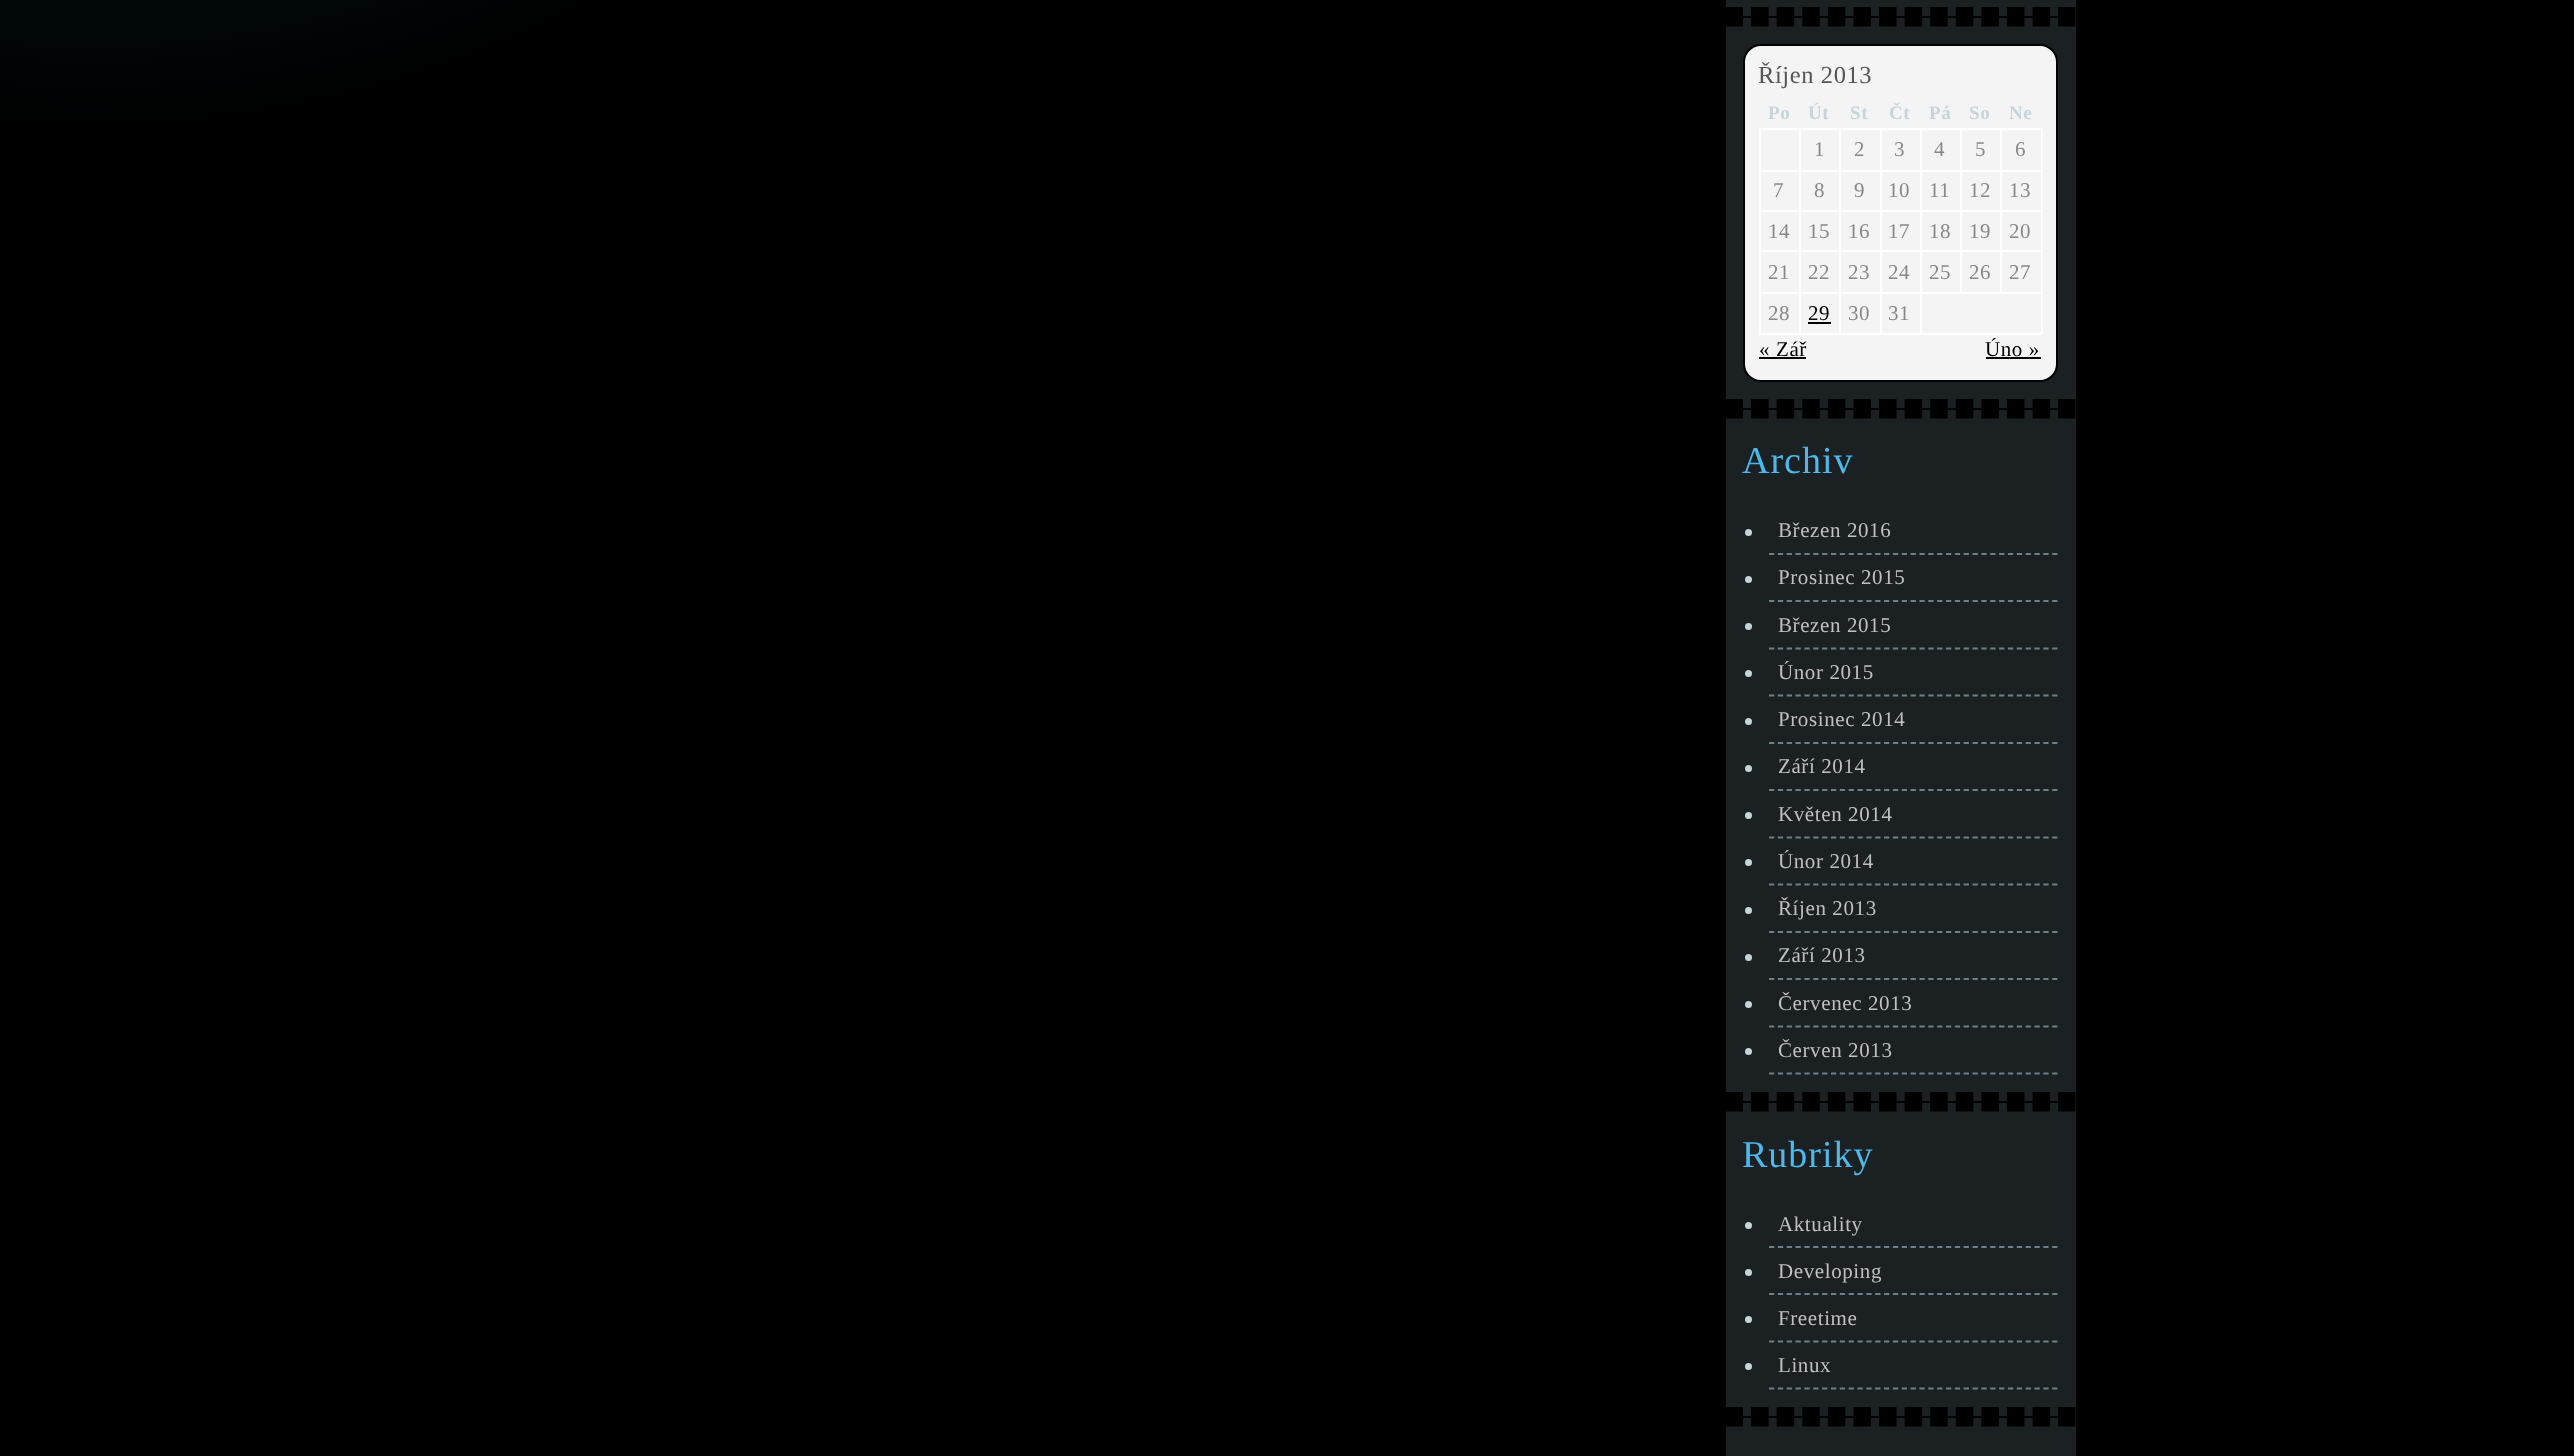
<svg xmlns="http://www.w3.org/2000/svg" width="2574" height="1456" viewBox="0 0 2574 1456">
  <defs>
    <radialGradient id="g1" gradientUnits="userSpaceOnUse" cx="91" cy="-919" r="1050"><stop offset="0" stop-color="#104555"/><stop offset="1" stop-color="#000"/></radialGradient>
    <clipPath id="clip1"><path d="M1726 0h385v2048H1726z"/></clipPath>
  </defs>
  <rect width="100%" height="100%" fill="#fff"/>
  <path d="M0 0h2574v1456H0z" fill="url(#g1)"/>
  <path d="M1726 0h350v16H1726z" fill="#1b2023"/>
  <g clip-path="url(#clip1)">
    <path d="M1725.5 11.5H2075.5" fill="none" stroke="#000" stroke-width="8.8" stroke-dasharray="17.5 8.09"/>
  </g>
  <path d="M1726 18h350v390H1726z" fill="#1b2023"/>
  <g clip-path="url(#clip1)">
    <path d="M1725.5 22H2075.5" fill="none" stroke="#000" stroke-width="8.8" stroke-dasharray="17.5 8.09"/>
    <path d="M1725.5 403.5H2075.5" fill="none" stroke="#000" stroke-width="8.8" stroke-dasharray="17.5 8.09"/>
  </g>
  <rect x="1744" y="45" width="313" height="336" rx="17" fill="#f4f4f4" stroke="#000" stroke-width="2"/>
  <path d="M2000 128h42v2H2000z" fill="#fff"/>
  <path d="M2000 170h42v2H2000z" fill="#fff"/>
  <path d="M2000 210h42v2H2000z" fill="#fff"/>
  <path d="M2000 250h42v2H2000z" fill="#fff"/>
  <path d="M1920 292h122v2H1920z" fill="#fff"/>
  <path d="M2000 250h2v44H2000z" fill="#fff"/>
  <path d="M1960 250h42v2H1960z" fill="#fff"/>
  <path d="M2000 210h2v42H2000z" fill="#fff"/>
  <path d="M1960 210h42v2H1960z" fill="#fff"/>
  <path d="M2000 170h2v42H2000z" fill="#fff"/>
  <path d="M1960 170h42v2H1960z" fill="#fff"/>
  <path d="M2000 128h2v44H2000z" fill="#fff"/>
  <path d="M1960 128h42v2H1960z" fill="#fff"/>
  <path d="M1960 250h2v44H1960z" fill="#fff"/>
  <path d="M1920 250h42v2H1920z" fill="#fff"/>
  <path d="M1960 210h2v42H1960z" fill="#fff"/>
  <path d="M1920 210h42v2H1920z" fill="#fff"/>
  <path d="M1960 170h2v42H1960z" fill="#fff"/>
  <path d="M1920 170h42v2H1920z" fill="#fff"/>
  <path d="M1960 128h2v44H1960z" fill="#fff"/>
  <path d="M1920 128h42v2H1920z" fill="#fff"/>
  <path d="M2041 292h2v42H2041z" fill="#fff"/>
  <path d="M1920 333h122v2H1920z" fill="#fff"/>
  <path d="M1920 292h2v42H1920z" fill="#fff"/>
  <path d="M1880 292h42v2H1880z" fill="#fff"/>
  <path d="M1920 250h2v44H1920z" fill="#fff"/>
  <path d="M1880 250h42v2H1880z" fill="#fff"/>
  <path d="M1920 210h2v42H1920z" fill="#fff"/>
  <path d="M1880 210h42v2H1880z" fill="#fff"/>
  <path d="M1920 170h2v42H1920z" fill="#fff"/>
  <path d="M1880 170h42v2H1880z" fill="#fff"/>
  <path d="M1920 128h2v44H1920z" fill="#fff"/>
  <path d="M1880 128h42v2H1880z" fill="#fff"/>
  <path d="M1880 333h42v2H1880z" fill="#fff"/>
  <path d="M1880 292h2v42H1880z" fill="#fff"/>
  <path d="M1839 292h42v2H1839z" fill="#fff"/>
  <path d="M1880 250h2v44H1880z" fill="#fff"/>
  <path d="M1839 250h42v2H1839z" fill="#fff"/>
  <path d="M1880 210h2v42H1880z" fill="#fff"/>
  <path d="M1839 210h42v2H1839z" fill="#fff"/>
  <path d="M1880 170h2v42H1880z" fill="#fff"/>
  <path d="M1839 170h42v2H1839z" fill="#fff"/>
  <path d="M1880 128h2v44H1880z" fill="#fff"/>
  <path d="M1839 128h42v2H1839z" fill="#fff"/>
  <path d="M1839 333h42v2H1839z" fill="#fff"/>
  <path d="M1839 292h2v42H1839z" fill="#fff"/>
  <path d="M1799 292h42v2H1799z" fill="#fff"/>
  <path d="M1839 250h2v44H1839z" fill="#fff"/>
  <path d="M1799 250h42v2H1799z" fill="#fff"/>
  <path d="M1839 210h2v42H1839z" fill="#fff"/>
  <path d="M1799 210h42v2H1799z" fill="#fff"/>
  <path d="M1839 170h2v42H1839z" fill="#fff"/>
  <path d="M1799 170h42v2H1799z" fill="#fff"/>
  <path d="M1839 128h2v44H1839z" fill="#fff"/>
  <path d="M1799 128h42v2H1799z" fill="#fff"/>
  <path d="M1799 333h42v2H1799z" fill="#fff"/>
  <path d="M1799 292h2v42H1799z" fill="#fff"/>
  <path d="M1759 292h42v2H1759z" fill="#fff"/>
  <path d="M1799 250h2v44H1799z" fill="#fff"/>
  <path d="M1759 250h42v2H1759z" fill="#fff"/>
  <path d="M1799 210h2v42H1799z" fill="#fff"/>
  <path d="M1759 210h42v2H1759z" fill="#fff"/>
  <path d="M1799 170h2v42H1799z" fill="#fff"/>
  <path d="M1759 170h42v2H1759z" fill="#fff"/>
  <path d="M1799 128h2v44H1799z" fill="#fff"/>
  <path d="M1759 128h42v2H1759z" fill="#fff"/>
  <path d="M1759 333h42v2H1759z" fill="#fff"/>
  <path d="M1759 292h2v42H1759z" fill="#fff"/>
  <path d="M1759 250h2v44H1759z" fill="#fff"/>
  <path d="M1759 210h2v42H1759z" fill="#fff"/>
  <path d="M1759 170h2v42H1759z" fill="#fff"/>
  <path d="M1759 128h2v44H1759z" fill="#fff"/>
  <path d="M2041 250h2v44H2041z" fill="#fff"/>
  <path d="M2041 210h2v42H2041z" fill="#fff"/>
  <path d="M2041 170h2v42H2041z" fill="#fff"/>
  <path d="M2041 128h2v44H2041z" fill="#fff"/>
  <path d="M1808 322h23v2H1808z" fill="#000"/>
  <path d="M1759 357h47v2H1759z" fill="#000"/>
  <path d="M1986 357h55v2H1986z" fill="#000"/>
  <path d="M1726 410h350v691H1726z" fill="#1b2023"/>
  <g clip-path="url(#clip1)">
    <path d="M1725.5 414H2075.5" fill="none" stroke="#000" stroke-width="8.8" stroke-dasharray="17.5 8.09"/>
    <path d="M1725.5 1096.5H2075.5" fill="none" stroke="#000" stroke-width="8.8" stroke-dasharray="17.5 8.09"/>
  </g>
  <path d="M1769 554H2058" fill="none" stroke="#6e8086" stroke-width="1.8" stroke-dasharray="5.25 3.6"/>
  <circle cx="1748.5" cy="532.5" r="3.5" fill="#c5d5da"/>
  <path d="M1769 601H2058" fill="none" stroke="#6e8086" stroke-width="1.8" stroke-dasharray="5.25 3.6"/>
  <circle cx="1748.5" cy="579.5" r="3.5" fill="#c5d5da"/>
  <path d="M1769 648.5H2058" fill="none" stroke="#6e8086" stroke-width="1.8" stroke-dasharray="5.25 3.6"/>
  <circle cx="1748.5" cy="626.5" r="3.5" fill="#c5d5da"/>
  <path d="M1769 695.5H2058" fill="none" stroke="#6e8086" stroke-width="1.8" stroke-dasharray="5.25 3.6"/>
  <circle cx="1748.5" cy="673.5" r="3.5" fill="#c5d5da"/>
  <path d="M1769 743H2058" fill="none" stroke="#6e8086" stroke-width="1.8" stroke-dasharray="5.25 3.6"/>
  <circle cx="1748.5" cy="721.5" r="3.5" fill="#c5d5da"/>
  <path d="M1769 790H2058" fill="none" stroke="#6e8086" stroke-width="1.8" stroke-dasharray="5.25 3.6"/>
  <circle cx="1748.5" cy="768.5" r="3.5" fill="#c5d5da"/>
  <path d="M1769 837.5H2058" fill="none" stroke="#6e8086" stroke-width="1.8" stroke-dasharray="5.25 3.6"/>
  <circle cx="1748.5" cy="815.5" r="3.5" fill="#c5d5da"/>
  <path d="M1769 884.5H2058" fill="none" stroke="#6e8086" stroke-width="1.8" stroke-dasharray="5.25 3.6"/>
  <circle cx="1748.5" cy="862.5" r="3.5" fill="#c5d5da"/>
  <path d="M1769 932H2058" fill="none" stroke="#6e8086" stroke-width="1.8" stroke-dasharray="5.25 3.6"/>
  <circle cx="1748.5" cy="910.5" r="3.5" fill="#c5d5da"/>
  <path d="M1769 979H2058" fill="none" stroke="#6e8086" stroke-width="1.8" stroke-dasharray="5.25 3.6"/>
  <circle cx="1748.5" cy="957.5" r="3.5" fill="#c5d5da"/>
  <path d="M1769 1026.5H2058" fill="none" stroke="#6e8086" stroke-width="1.8" stroke-dasharray="5.25 3.6"/>
  <circle cx="1748.5" cy="1004.5" r="3.5" fill="#c5d5da"/>
  <path d="M1769 1073.5H2058" fill="none" stroke="#6e8086" stroke-width="1.8" stroke-dasharray="5.25 3.6"/>
  <circle cx="1748.5" cy="1051.5" r="3.5" fill="#c5d5da"/>
  <path d="M1726 1103h350v313H1726z" fill="#1b2023"/>
  <g clip-path="url(#clip1)">
    <path d="M1725.5 1107H2075.5" fill="none" stroke="#000" stroke-width="8.8" stroke-dasharray="17.5 8.09"/>
    <path d="M1725.5 1411.5H2075.5" fill="none" stroke="#000" stroke-width="8.8" stroke-dasharray="17.5 8.09"/>
  </g>
  <path d="M1769 1247H2058" fill="none" stroke="#6e8086" stroke-width="1.8" stroke-dasharray="5.25 3.6"/>
  <circle cx="1748.5" cy="1225.5" r="3.5" fill="#c5d5da"/>
  <path d="M1769 1294H2058" fill="none" stroke="#6e8086" stroke-width="1.8" stroke-dasharray="5.25 3.6"/>
  <circle cx="1748.5" cy="1272.5" r="3.5" fill="#c5d5da"/>
  <path d="M1769 1341.5H2058" fill="none" stroke="#6e8086" stroke-width="1.8" stroke-dasharray="5.25 3.6"/>
  <circle cx="1748.5" cy="1319.5" r="3.5" fill="#c5d5da"/>
  <path d="M1769 1388.5H2058" fill="none" stroke="#6e8086" stroke-width="1.8" stroke-dasharray="5.25 3.6"/>
  <circle cx="1748.5" cy="1366.5" r="3.5" fill="#c5d5da"/>
  <path d="M1726 1418h350v38H1726z" fill="#1b2023"/>
  <g clip-path="url(#clip1)">
    <path d="M1725.5 1422H2075.5" fill="none" stroke="#000" stroke-width="8.8" stroke-dasharray="17.5 8.09"/>
  </g>
  <text x="1758" y="83" font-family="Liberation Serif" font-size="24.5" letter-spacing="0.6" fill="#555">Říjen 2013</text>
  <g font-family="Liberation Serif" font-size="19" font-weight="bold" letter-spacing="0.6" fill="#c5d5da">
    <text x="1768" y="119">Po</text>
    <text x="1808" y="119">Út</text>
    <text x="1850" y="119">St</text>
    <text x="1889" y="119">Čt</text>
    <text x="1929" y="119">Pá</text>
    <text x="1969" y="119">So</text>
    <text x="2009" y="119">Ne</text>
  </g>
  <g font-family="Liberation Serif" font-size="21" letter-spacing="0.6" fill="#888">
    <text x="1814" y="156">1</text>
    <text x="1854" y="156">2</text>
    <text x="1894" y="156">3</text>
    <text x="1934" y="156">4</text>
    <text x="1975" y="156">5</text>
    <text x="2015" y="156">6</text>
    <text x="1773" y="197">7</text>
    <text x="1814" y="197">8</text>
    <text x="1854" y="197">9</text>
    <text x="1888" y="197">10</text>
    <text x="1929" y="197">11</text>
    <text x="1969" y="197">12</text>
    <text x="2009" y="197">13</text>
    <text x="1768" y="238">14</text>
    <text x="1808" y="238">15</text>
    <text x="1848" y="238">16</text>
    <text x="1888" y="238">17</text>
    <text x="1929" y="238">18</text>
    <text x="1969" y="238">19</text>
    <text x="2009" y="238">20</text>
    <text x="1768" y="279">21</text>
    <text x="1808" y="279">22</text>
    <text x="1848" y="279">23</text>
    <text x="1888" y="279">24</text>
    <text x="1929" y="279">25</text>
    <text x="1969" y="279">26</text>
    <text x="2009" y="279">27</text>
    <text x="1768" y="320">28</text>
  </g>
  <text x="1808" y="320" font-family="Liberation Serif" font-size="21" letter-spacing="0.6" fill="#000">29</text>
  <g font-family="Liberation Serif" font-size="21" letter-spacing="0.6" fill="#888">
    <text x="1848" y="320">30</text>
    <text x="1888" y="320">31</text>
  </g>
  <g font-family="Liberation Serif" font-size="21" letter-spacing="0.6" fill="#000">
    <text x="1759" y="356">« Zář</text>
    <text x="1985" y="356">Úno »</text>
  </g>
  <text x="1742" y="473" font-family="Liberation Serif" font-size="38" letter-spacing="1" fill="#4cb8eb">Archiv</text>
  <g font-family="Liberation Serif" font-size="21" letter-spacing="0.6" fill="#c0c0c0">
    <text x="1778" y="537">Březen 2016</text>
    <text x="1778" y="584">Prosinec 2015</text>
    <text x="1778" y="632">Březen 2015</text>
    <text x="1778" y="679">Únor 2015</text>
    <text x="1778" y="726">Prosinec 2014</text>
    <text x="1778" y="773">Září 2014</text>
    <text x="1778" y="821">Květen 2014</text>
    <text x="1778" y="868">Únor 2014</text>
    <text x="1778" y="915">Říjen 2013</text>
    <text x="1778" y="962">Září 2013</text>
    <text x="1778" y="1010">Červenec 2013</text>
    <text x="1778" y="1057">Červen 2013</text>
  </g>
  <text x="1742" y="1167" font-family="Liberation Serif" font-size="38" letter-spacing="1" fill="#4cb8eb">Rubriky</text>
  <g font-family="Liberation Serif" font-size="21" letter-spacing="0.6" fill="#c0c0c0">
    <text x="1778" y="1231">Aktuality</text>
    <text x="1778" y="1278">Developing</text>
    <text x="1778" y="1325">Freetime</text>
    <text x="1778" y="1372">Linux</text>
  </g>
</svg>
